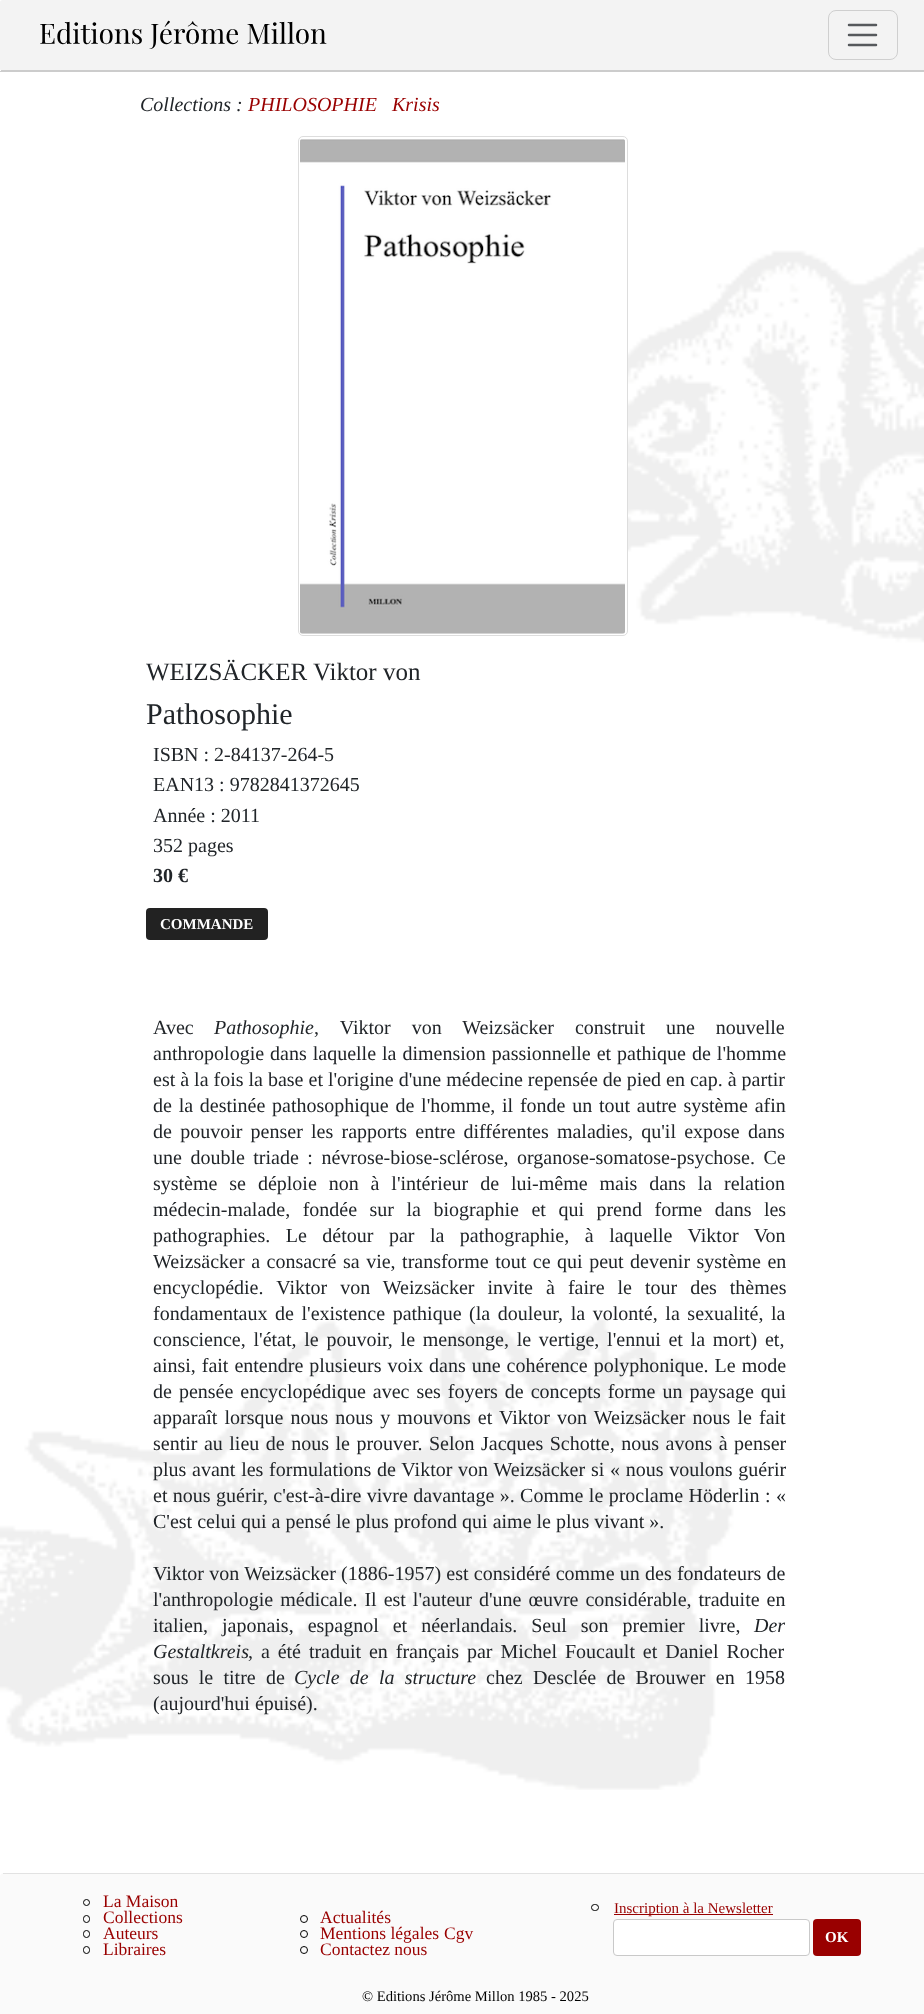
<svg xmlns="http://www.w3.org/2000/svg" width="924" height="2014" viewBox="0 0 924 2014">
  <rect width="100%" height="100%" fill="#fff"/>
  <image x="0" y="247" width="924" height="1543" href="img/1.png"/>
  <rect width="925" height="71" rx="2.5" fill="#f3f3f3"/>
  <path d="M1 70h923v1H1z" fill="#ccc"/>
  <image x="40" y="20" width="287" height="29" href="img/2.png"/>
  <rect x="828.5" y="10.5" width="69" height="49" rx="7.5" fill="none" stroke="#cfcfcf"/>
  <path d="M849 25H876M849 35H876M849 45H876" fill="none" stroke="#56595c" stroke-width="2.5" stroke-linecap="round"/>
  <path d="M0 71h924v1H0z" fill="#ccc"/>
  <rect x="298.5" y="136.5" width="329" height="499" rx="4.5" fill="#fff" stroke="#ddd"/>
  <image x="300" y="139" width="325" height="495" href="img/3.png"/>
  <rect x="146" y="908" width="122" height="32" rx="4" fill="#222"/>
  <rect y="1873" width="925" height="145" rx="4" fill="#fafafa"/>
  <path d="M3 1873h921v1H3z" fill="#cccccc87"/>
  <circle cx="86.5" cy="1902.5" r="3" fill="none" stroke="#000"/>
  <rect x="83.5" y="1915.5" width="6" height="7" rx="3" fill="none" stroke="#000"/>
  <rect x="83.5" y="1930.5" width="6" height="7" rx="3" fill="none" stroke="#000"/>
  <rect x="83.5" y="1946.5" width="6" height="7" rx="3" fill="none" stroke="#000"/>
  <circle cx="304" cy="1919" r="3.5" fill="none" stroke="#000"/>
  <circle cx="304" cy="1934" r="3.5" fill="none" stroke="#000"/>
  <circle cx="304" cy="1950" r="3.5" fill="none" stroke="#000"/>
  <rect x="591.5" y="1904.5" width="7" height="6" rx="3" fill="none" stroke="#000"/>
  <path d="M614 1914h159v1H614z" fill="#900"/>
  <rect x="613.5" y="1919.5" width="196" height="36" rx="3.5" fill="#fff" stroke="#c9c9c9"/>
  <rect x="813" y="1919" width="48" height="37" rx="4" fill="#900"/>
  <text x="140" y="111" font-family="Liberation Serif" font-size="20" font-style="italic" fill="#212529">Collections :</text>
  <g font-family="Liberation Serif" font-size="20" font-style="italic" fill="#900">
    <text x="248" y="111">PHILOSOPHIE</text>
    <text x="392" y="111">Krisis</text>
  </g>
  <text x="146" y="680" font-family="Liberation Serif" font-size="25" fill="#212529">WEIZSÄCKER Viktor von</text>
  <text x="146" y="724" font-family="Liberation Serif" font-size="30" fill="#212529">Pathosophie</text>
  <g font-family="Liberation Serif" font-size="20" fill="#212529">
    <text x="153" y="761">ISBN : 2-84137-264-5</text>
    <text x="153" y="791">EAN13 : 9782841372645</text>
    <text x="153" y="822">Année : 2011</text>
    <text x="153" y="852">352 pages</text>
  </g>
  <text x="153" y="882" font-family="Liberation Serif" font-size="20" font-weight="bold" fill="#212529">30 €</text>
  <text x="160" y="929" font-family="Liberation Serif" font-size="15" font-weight="bold" fill="#fff">COMMANDE</text>
  <text x="153" y="1034" font-family="Liberation Serif" font-size="20" fill="#212529">Avec</text>
  <text x="214" y="1034" font-family="Liberation Serif" font-size="20" font-style="italic" fill="#212529">Pathosophie</text>
  <g font-family="Liberation Serif" font-size="20" fill="#212529">
    <text x="314" y="1034" word-spacing="16">, Viktor von Weizsäcker construit une nouvelle</text>
    <text x="153" y="1060" word-spacing="1">anthropologie dans laquelle la dimension passionnelle et pathique de l'homme</text>
    <text x="153" y="1086">est à la fois la base et l'origine d'une médecine repensée de pied en cap. à partir</text>
    <text x="153" y="1112" word-spacing="1.75">de la destinée pathosophique de l'homme, il fonde un tout autre système afin</text>
    <text x="153" y="1138" word-spacing="3.25">de pouvoir penser les rapports entre différentes maladies, qu'il expose dans</text>
    <text x="153" y="1164" word-spacing="3.5">une double triade : névrose-biose-sclérose, organose-somatose-psychose. Ce</text>
    <text x="153" y="1190" word-spacing="6.9">système se déploie non à l'intérieur de lui-même mais dans la relation</text>
    <text x="153" y="1216" word-spacing="7.5">médecin-malade, fondée sur la biographie et qui prend forme dans les</text>
    <text x="153" y="1242" word-spacing="10.5">pathographies. Le détour par la pathographie, à laquelle Viktor Von</text>
    <text x="153" y="1268" word-spacing="1.5">Weizsäcker a consacré sa vie, transforme tout ce qui peut devenir système en</text>
    <text x="153" y="1294" word-spacing="8">encyclopédie. Viktor von Weizsäcker invite à faire le tour des thèmes</text>
    <text x="153" y="1320" word-spacing="2.6">fondamentaux de l'existence pathique (la douleur, la volonté, la sexualité, la</text>
    <text x="153" y="1346" word-spacing="2.75">conscience, l'état, le pouvoir, le mensonge, le vertige, l'ennui et la mort) et,</text>
    <text x="153" y="1372" word-spacing="1">ainsi, fait entendre plusieurs voix dans une cohérence polyphonique. Le mode</text>
    <text x="153" y="1398" word-spacing="2">de pensée encyclopédique avec ses foyers de concepts forme un paysage qui</text>
    <text x="153" y="1424" word-spacing="2.1">apparaît lorsque nous nous y mouvons et Viktor von Weizsäcker nous le fait</text>
    <text x="153" y="1450" word-spacing="1.5">sentir au lieu de nous le prouver. Selon Jacques Schotte, nous avons à penser</text>
    <text x="153" y="1476" word-spacing="0.75">plus avant les formulations de Viktor von Weizsäcker si « nous voulons guérir</text>
    <text x="153" y="1502" word-spacing="0.4">et nous guérir, c'est-à-dire vivre davantage ». Comme le proclame Höderlin : «</text>
    <text x="153" y="1528">C'est celui qui a pensé le plus profond qui aime le plus vivant ».</text>
    <text x="153" y="1580" word-spacing="0.25">Viktor von Weizsäcker (1886-1957) est considéré comme un des fondateurs de</text>
    <text x="153" y="1606" word-spacing="2">l'anthropologie médicale. Il est l'auteur d'une œuvre considérable, traduite en</text>
    <text x="153" y="1632" word-spacing="9">italien, japonais, espagnol et néerlandais. Seul son premier livre,</text>
  </g>
  <g font-family="Liberation Serif" font-size="20" font-style="italic" fill="#212529">
    <text x="754" y="1632">Der</text>
    <text x="153" y="1658">Gestaltkreis</text>
  </g>
  <g font-family="Liberation Serif" font-size="20" fill="#212529">
    <text x="248" y="1658" word-spacing="2.9">, a été traduit en français par Michel Foucault et Daniel Rocher</text>
    <text x="153" y="1684" word-spacing="5.25">sous le titre de</text>
  </g>
  <text x="294" y="1684" word-spacing="5.25" font-family="Liberation Serif" font-size="20" font-style="italic" fill="#212529">Cycle de la structure</text>
  <g font-family="Liberation Serif" font-size="20" fill="#212529">
    <text x="486" y="1684" word-spacing="5.25">chez Desclée de Brouwer en 1958</text>
    <text x="153" y="1710">(aujourd'hui épuisé).</text>
  </g>
  <g font-family="Liberation Serif" font-size="17.5" fill="#900">
    <text x="103" y="1907">La Maison</text>
    <text x="103" y="1923">Collections</text>
    <text x="103" y="1939">Auteurs</text>
    <text x="103" y="1955">Libraires</text>
    <text x="320" y="1923">Actualités</text>
    <text x="320" y="1939">Mentions légales</text>
    <text x="444" y="1939">Cgv</text>
    <text x="320" y="1955">Contactez nous</text>
  </g>
  <text x="614" y="1913" font-family="Liberation Serif" font-size="15" fill="#900">Inscription à la Newsletter</text>
  <text x="825" y="1942" font-family="Liberation Serif" font-size="15" font-weight="bold" fill="#fff">OK</text>
  <text x="362" y="2001" font-family="Liberation Serif" font-size="14.6" fill="#000">© Editions Jérôme Millon 1985 - 2025</text>
</svg>
